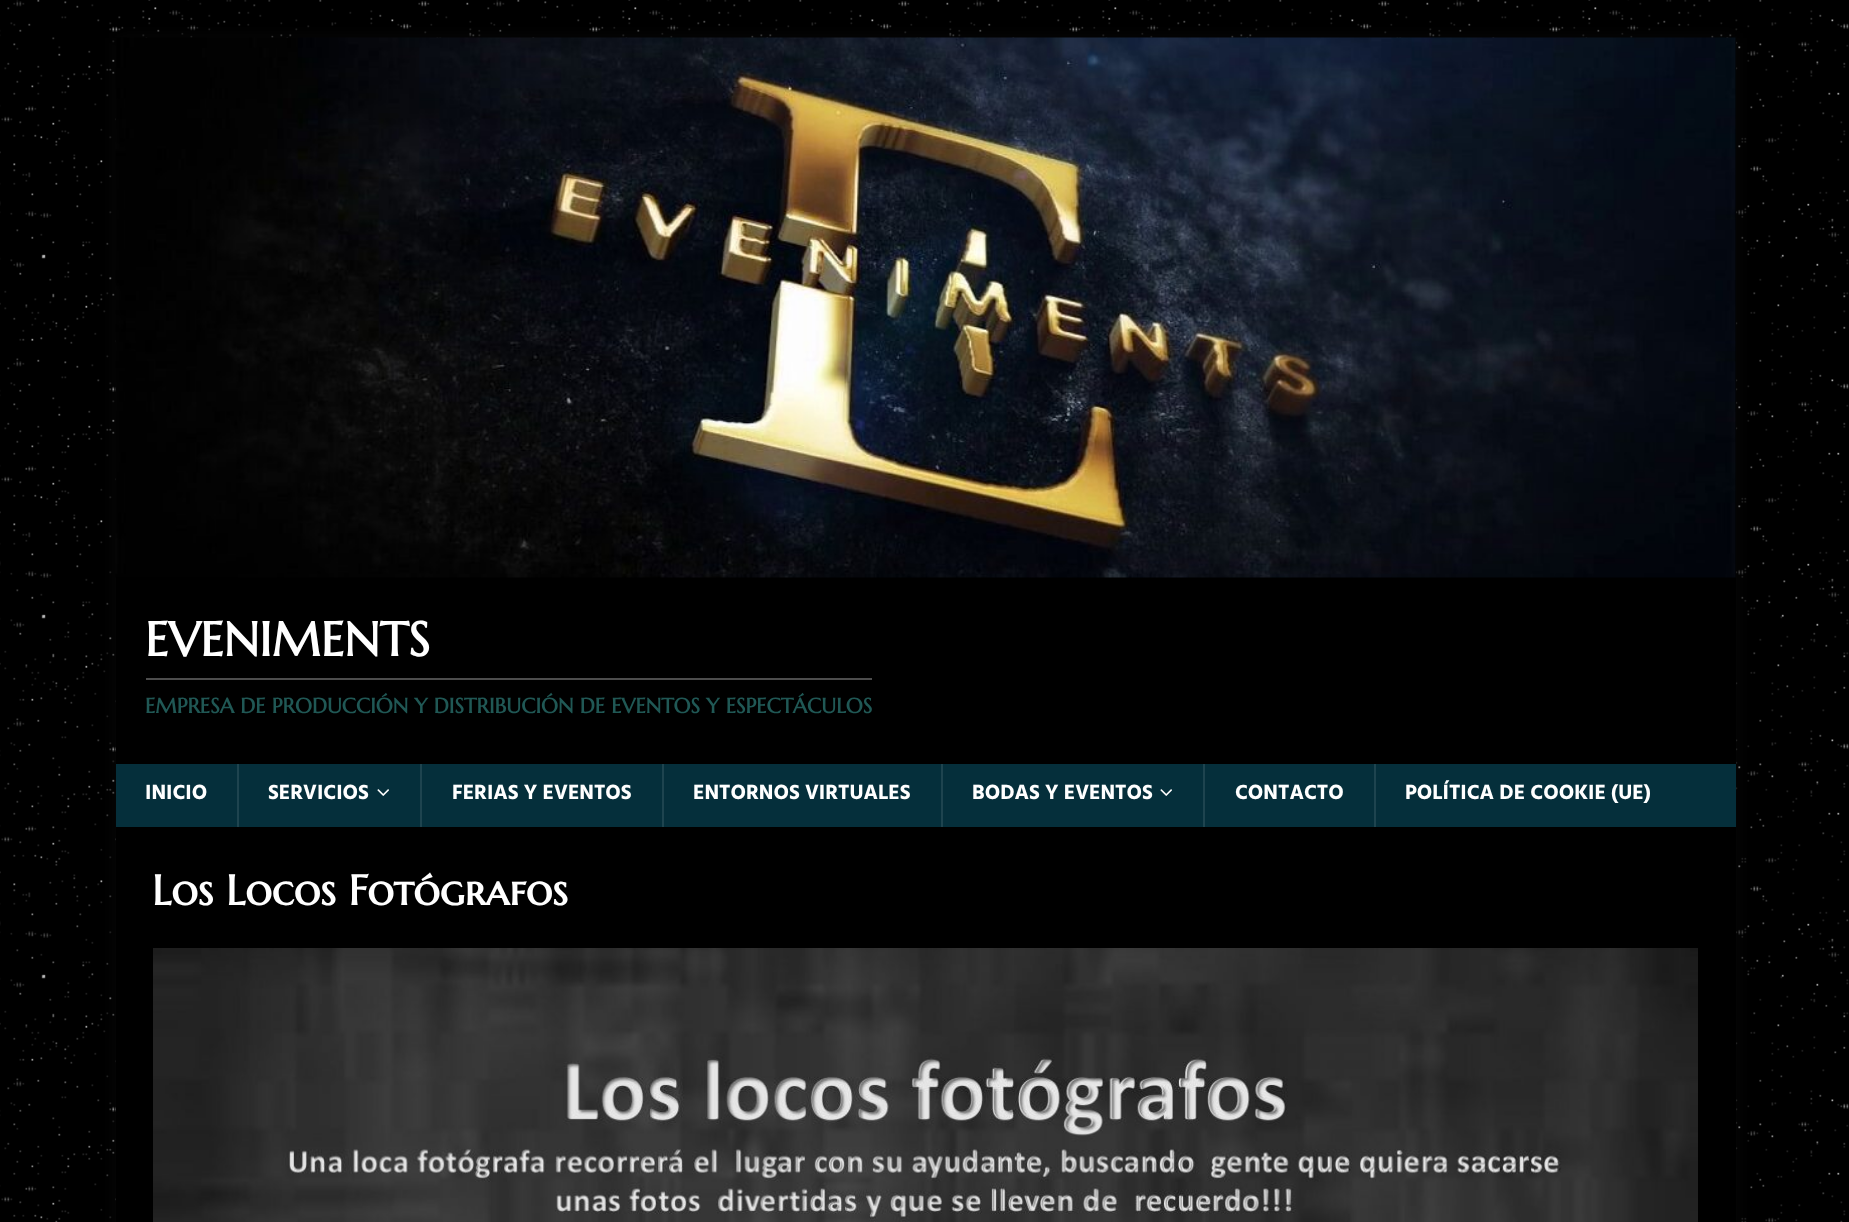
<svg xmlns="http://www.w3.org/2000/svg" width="1849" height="1222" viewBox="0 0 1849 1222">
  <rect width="100%" height="100%" fill="#fff"/>
  <image x="0" y="0" width="1849" height="1222" href="img/1.png"/>
  <path d="M116 38h1620v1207H116z" fill="#3232322b" filter="blur(7.5px)"/>
  <path d="M116 38h1620v726H116z" fill="#000"/>
  <image x="115" y="37" width="1621" height="541" href="img/2.png"/>
  <path d="M146 678h726v2H146z" fill="#4d4d4d"/>
  <path d="M116 764h1620v63H116z" fill="#052f3b"/>
  <path d="M237 764h2v63H237z" fill="#1e444f"/>
  <image x="377" y="789" width="12" height="7" href="img/3.png"/>
  <path d="M420 764h2v63H420z" fill="#1e444f"/>
  <path d="M662 764h2v63H662z" fill="#1e444f"/>
  <path d="M941 764h2v63H941z" fill="#1e444f"/>
  <image x="1160" y="789" width="12" height="7" href="img/3.png"/>
  <path d="M1203 764h2v63H1203z" fill="#1e444f"/>
  <path d="M1374 764h2v63H1374z" fill="#1e444f"/>
  <path d="M116 827h1620v395H116z" fill="#000"/>
  <image x="153" y="948" width="1545" height="274" href="img/4.png"/>
  <text x="145" y="656" font-family="Marcellus SC" font-size="48" font-weight="bold" fill="#fff">EVENIMENTS</text>
  <text x="145" y="713" font-family="Marcellus SC" font-size="21" font-weight="bold" fill="#205855">EMPRESA DE PRODUCCIÓN Y DISTRIBUCIÓN DE EVENTOS Y ESPECTÁCULOS</text>
  <g font-family="Hind" font-size="21" font-weight="bold" fill="#fff">
    <text x="145" y="799">INICIO</text>
    <text x="268" y="799">SERVICIOS</text>
    <text x="452" y="799">FERIAS Y EVENTOS</text>
    <text x="693" y="799">ENTORNOS VIRTUALES</text>
    <text x="972" y="799">BODAS Y EVENTOS</text>
    <text x="1235" y="799">CONTACTO</text>
    <text x="1405" y="799">POLÍTICA DE COOKIE (UE)</text>
  </g>
  <text x="152" y="905" font-family="Marcellus SC" font-size="42" font-weight="bold" fill="#fff">Los Locos Fotógrafos</text>
</svg>
